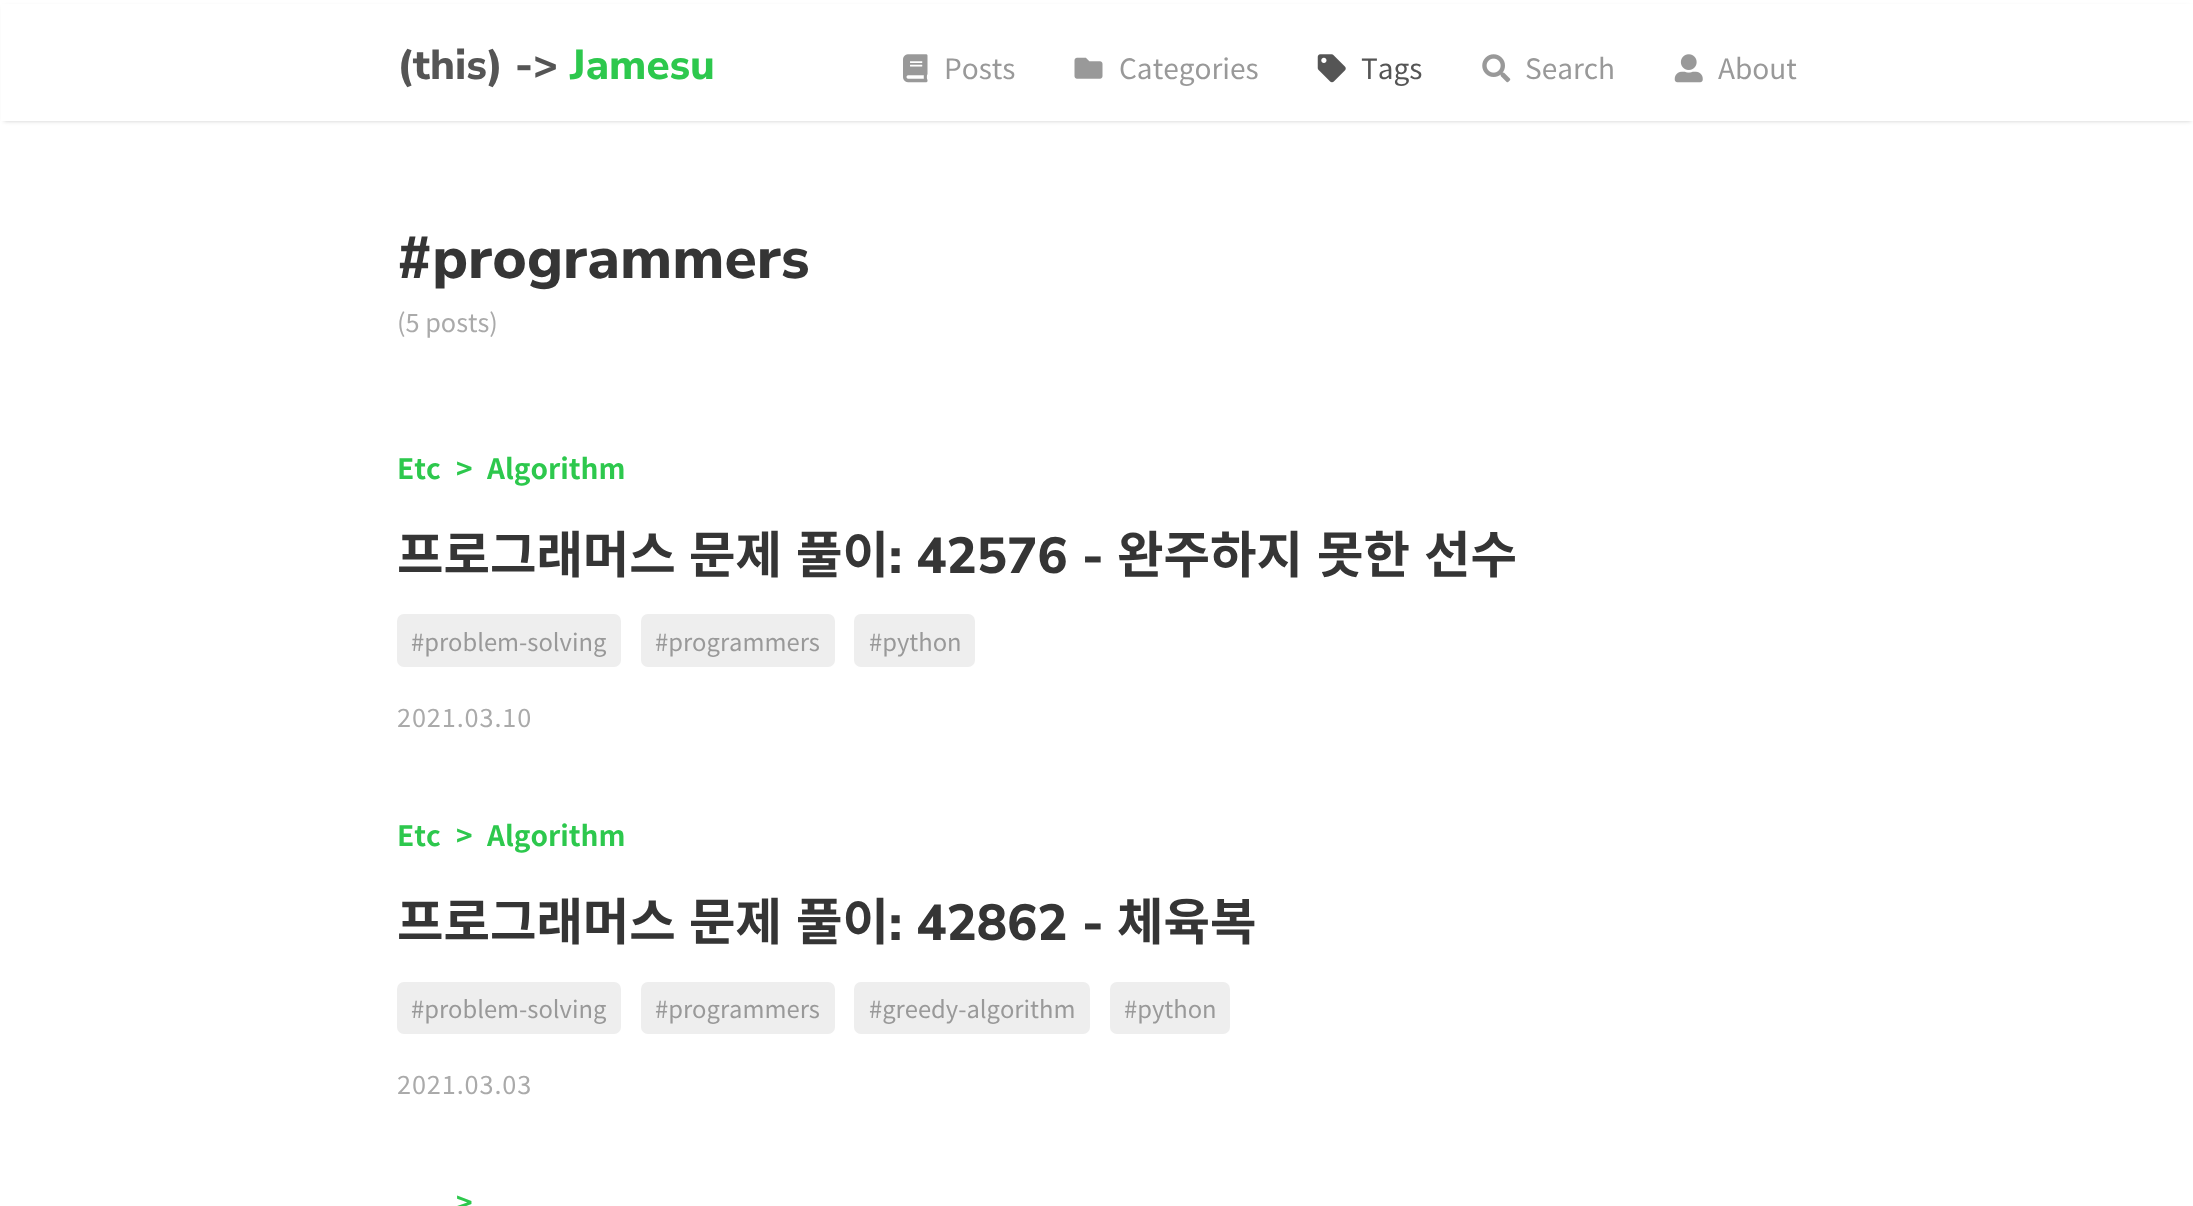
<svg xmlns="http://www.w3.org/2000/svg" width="2193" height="1206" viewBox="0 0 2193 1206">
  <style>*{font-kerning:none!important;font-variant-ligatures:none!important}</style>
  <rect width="100%" height="100%" fill="#fff"/>
  <path d="M4 7h2187v114H4z" fill="#00000033" filter="blur(2px)"/>
  <path d="M1 4h2192v117H1z" fill="#fff"/>
  <image x="903" y="54" width="25" height="29" href="img/1.png"/>
  <image x="1074" y="57" width="29" height="22" href="img/2.png"/>
  <image x="1317" y="54" width="29" height="29" href="img/3.png"/>
  <image x="1482" y="54" width="29" height="29" href="img/4.png"/>
  <image x="1674" y="54" width="29" height="29" href="img/5.png"/>
  <rect x="397" y="614" width="224" height="53" rx="7" fill="#eee"/>
  <rect x="641" y="614" width="194" height="53" rx="7" fill="#eee"/>
  <rect x="854" y="614" width="121" height="53" rx="7" fill="#eee"/>
  <rect x="397" y="982" width="224" height="52" rx="7" fill="#eee"/>
  <rect x="641" y="982" width="194" height="52" rx="7" fill="#eee"/>
  <rect x="854" y="982" width="236" height="52" rx="7" fill="#eee"/>
  <rect x="1110" y="982" width="120" height="52" rx="7" fill="#eee"/>
  <text x="397" y="79" font-family="Nunito Sans" font-size="42" font-weight="200" fill="#555">(this) -&gt;</text>
  <text x="570" y="79" font-family="Nunito Sans" font-size="42" font-weight="200" fill="#2dc84d">Jamesu</text>
  <g font-family="Noto Sans KR" font-size="28" fill="#999">
    <text x="944" y="79">Posts</text>
    <text x="1119" y="79">Categories</text>
  </g>
  <text x="1361" y="79" font-family="Noto Sans KR" font-size="28" fill="#555">Tags</text>
  <g font-family="Noto Sans KR" font-size="28" fill="#999">
    <text x="1525" y="79">Search</text>
    <text x="1718" y="79">About</text>
  </g>
  <text x="397" y="278" font-family="Nunito Sans" font-size="58.75" font-weight="200" fill="#353535">#programmers</text>
  <text x="397" y="332" font-family="Noto Sans KR" font-size="25.25" fill="#aaa">(5 posts)</text>
  <g font-family="Noto Sans KR" font-size="28" font-weight="bold" fill="#2dc84d">
    <text x="397" y="479">Etc</text>
    <text x="456" y="479">&gt;</text>
    <text x="487" y="479">Algorithm</text>
  </g>
  <g font-family="Noto Sans KR" font-size="50.5" font-weight="bold" fill="#353535">
    <text x="397" y="573">프로그래머스</text>
    <text x="689" y="573">문제</text>
    <text x="796" y="573">풀이</text>
  </g>
  <text x="889" y="573" font-family="Nunito Sans" font-size="50.5" font-weight="200" fill="#353535">: 42576 -</text>
  <g font-family="Noto Sans KR" font-size="50.5" font-weight="bold" fill="#353535">
    <text x="1117" y="573">완주하지</text>
    <text x="1317" y="573">못한</text>
    <text x="1424" y="573">선수</text>
  </g>
  <g font-family="Noto Sans KR" font-size="23.75" fill="#999">
    <text x="411" y="651">#problem-solving</text>
    <text x="655" y="651">#programmers</text>
    <text x="869" y="651">#python</text>
  </g>
  <text x="397" y="727" font-family="Noto Sans KR" font-size="25.25" letter-spacing="0.9" fill="#aaa">2021.03.10</text>
  <g font-family="Noto Sans KR" font-size="28" font-weight="bold" fill="#2dc84d">
    <text x="397" y="846">Etc</text>
    <text x="456" y="846">&gt;</text>
    <text x="487" y="846">Algorithm</text>
  </g>
  <g font-family="Noto Sans KR" font-size="50.5" font-weight="bold" fill="#353535">
    <text x="397" y="940">프로그래머스</text>
    <text x="689" y="940">문제</text>
    <text x="796" y="940">풀이</text>
  </g>
  <text x="889" y="940" font-family="Nunito Sans" font-size="50.5" font-weight="200" fill="#353535">: 42862 -</text>
  <text x="1117" y="940" font-family="Noto Sans KR" font-size="50.5" font-weight="bold" fill="#353535">체육복</text>
  <g font-family="Noto Sans KR" font-size="23.75" fill="#999">
    <text x="411" y="1018">#problem-solving</text>
    <text x="655" y="1018">#programmers</text>
    <text x="869" y="1018">#greedy-algorithm</text>
    <text x="1124" y="1018">#python</text>
  </g>
  <text x="397" y="1094" font-family="Noto Sans KR" font-size="25.25" letter-spacing="0.9" fill="#aaa">2021.03.03</text>
  <text x="456" y="1213" font-family="Noto Sans KR" font-size="28" font-weight="bold" fill="#2dc84d">&gt;</text>
</svg>
